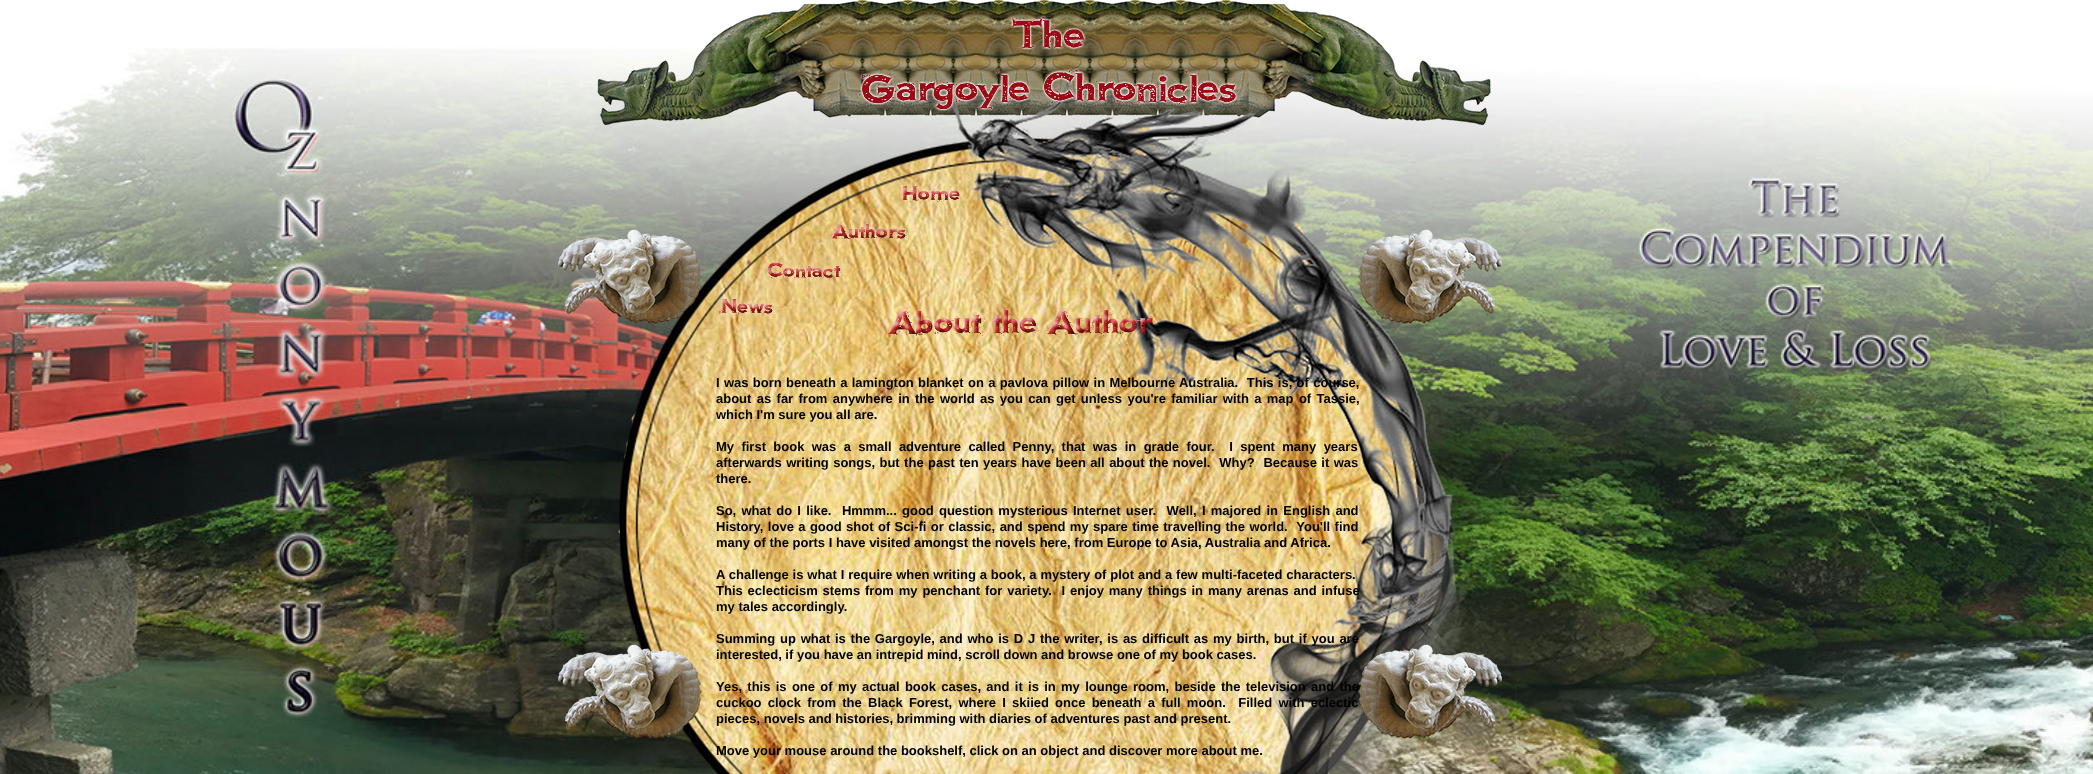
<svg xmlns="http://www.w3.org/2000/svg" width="2093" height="774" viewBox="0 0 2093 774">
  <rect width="100%" height="100%" fill="#fff"/>
  <image x="0" y="0" width="2093" height="774" href="img/1.png"/>
  <image x="597" y="0" width="894" height="125" href="img/2.png"/>
  <image x="618" y="58" width="848" height="716" href="img/4.png"/>
  <image x="857" y="15" width="384" height="101" href="img/3.png"/>
  <image x="900" y="183" width="62" height="20" href="img/5.png"/>
  <image x="717" y="295" width="59" height="23" href="img/10.png"/>
  <image x="507" y="229" width="236" height="128" href="img/6.png"/>
  <image x="765" y="260" width="78" height="21" href="img/7.png"/>
  <image x="828" y="220" width="81" height="23" href="img/8.png"/>
  <image x="1317" y="229" width="200" height="117" href="img/9.png"/>
  <image x="887" y="307" width="266" height="29" href="img/11.png"/>
  <g font-family="Liberation Sans" font-size="13" font-weight="bold" fill="#000">
    <text x="716" y="387" word-spacing="0.7" xml:space="preserve">I was born beneath a lamington blanket on a pavlova pillow in Melbourne Australia.  This is, of course,</text>
    <text x="716" y="403" word-spacing="1.75">about as far from anywhere in the world as you can get unless you're familiar with a map of Tassie,</text>
    <text x="716" y="419">which I'm sure you all are.</text>
    <text x="716" y="451" word-spacing="3.75" xml:space="preserve">My first book was a small adventure called Penny, that was in grade four.  I spent many years</text>
    <text x="716" y="467" word-spacing="0.8" xml:space="preserve">afterwards writing songs, but the past ten years have been all about the novel.  Why?  Because it was</text>
    <text x="716" y="483">there.</text>
    <text x="716" y="515" word-spacing="1.6" xml:space="preserve">So, what do I like.  Hmmm... good question mysterious Internet user.  Well, I majored in English and</text>
    <text x="716" y="531" word-spacing="0.8" xml:space="preserve">History, love a good shot of Sci-fi or classic, and spend my spare time travelling the world.  You'll find</text>
    <text x="716" y="547">many of the ports I have visited amongst the novels here, from Europe to Asia, Australia and Africa.</text>
    <text x="716" y="579" word-spacing="0.25">A challenge is what I require when writing a book, a mystery of plot and a few multi-faceted characters.</text>
    <text x="716" y="595" word-spacing="1.25" xml:space="preserve">This eclecticism stems from my penchant for variety.  I enjoy many things in many arenas and infuse</text>
    <text x="716" y="611">my tales accordingly.</text>
    <text x="716" y="643" word-spacing="1.15">Summing up what is the Gargoyle, and who is D J the writer, is as difficult as my birth, but if you are</text>
    <text x="716" y="659">interested, if you have an intrepid mind, scroll down and browse one of my book cases.</text>
    <text x="716" y="691" word-spacing="1.7">Yes, this is one of my actual book cases, and it is in my lounge room, beside the television and the</text>
    <text x="716" y="707" word-spacing="2.6" xml:space="preserve">cuckoo clock from the Black Forest, where I skiied once beneath a full moon.  Filled with eclectic</text>
    <text x="716" y="723">pieces, novels and histories, brimming with diaries of adventures past and present.</text>
    <text x="716" y="755">Move your mouse around the bookshelf, click on an object and discover more about me.</text>
  </g>
  <image x="507" y="644" width="236" height="123" href="img/12.png"/>
  <image x="1317" y="644" width="234" height="128" href="img/13.png"/>
</svg>
